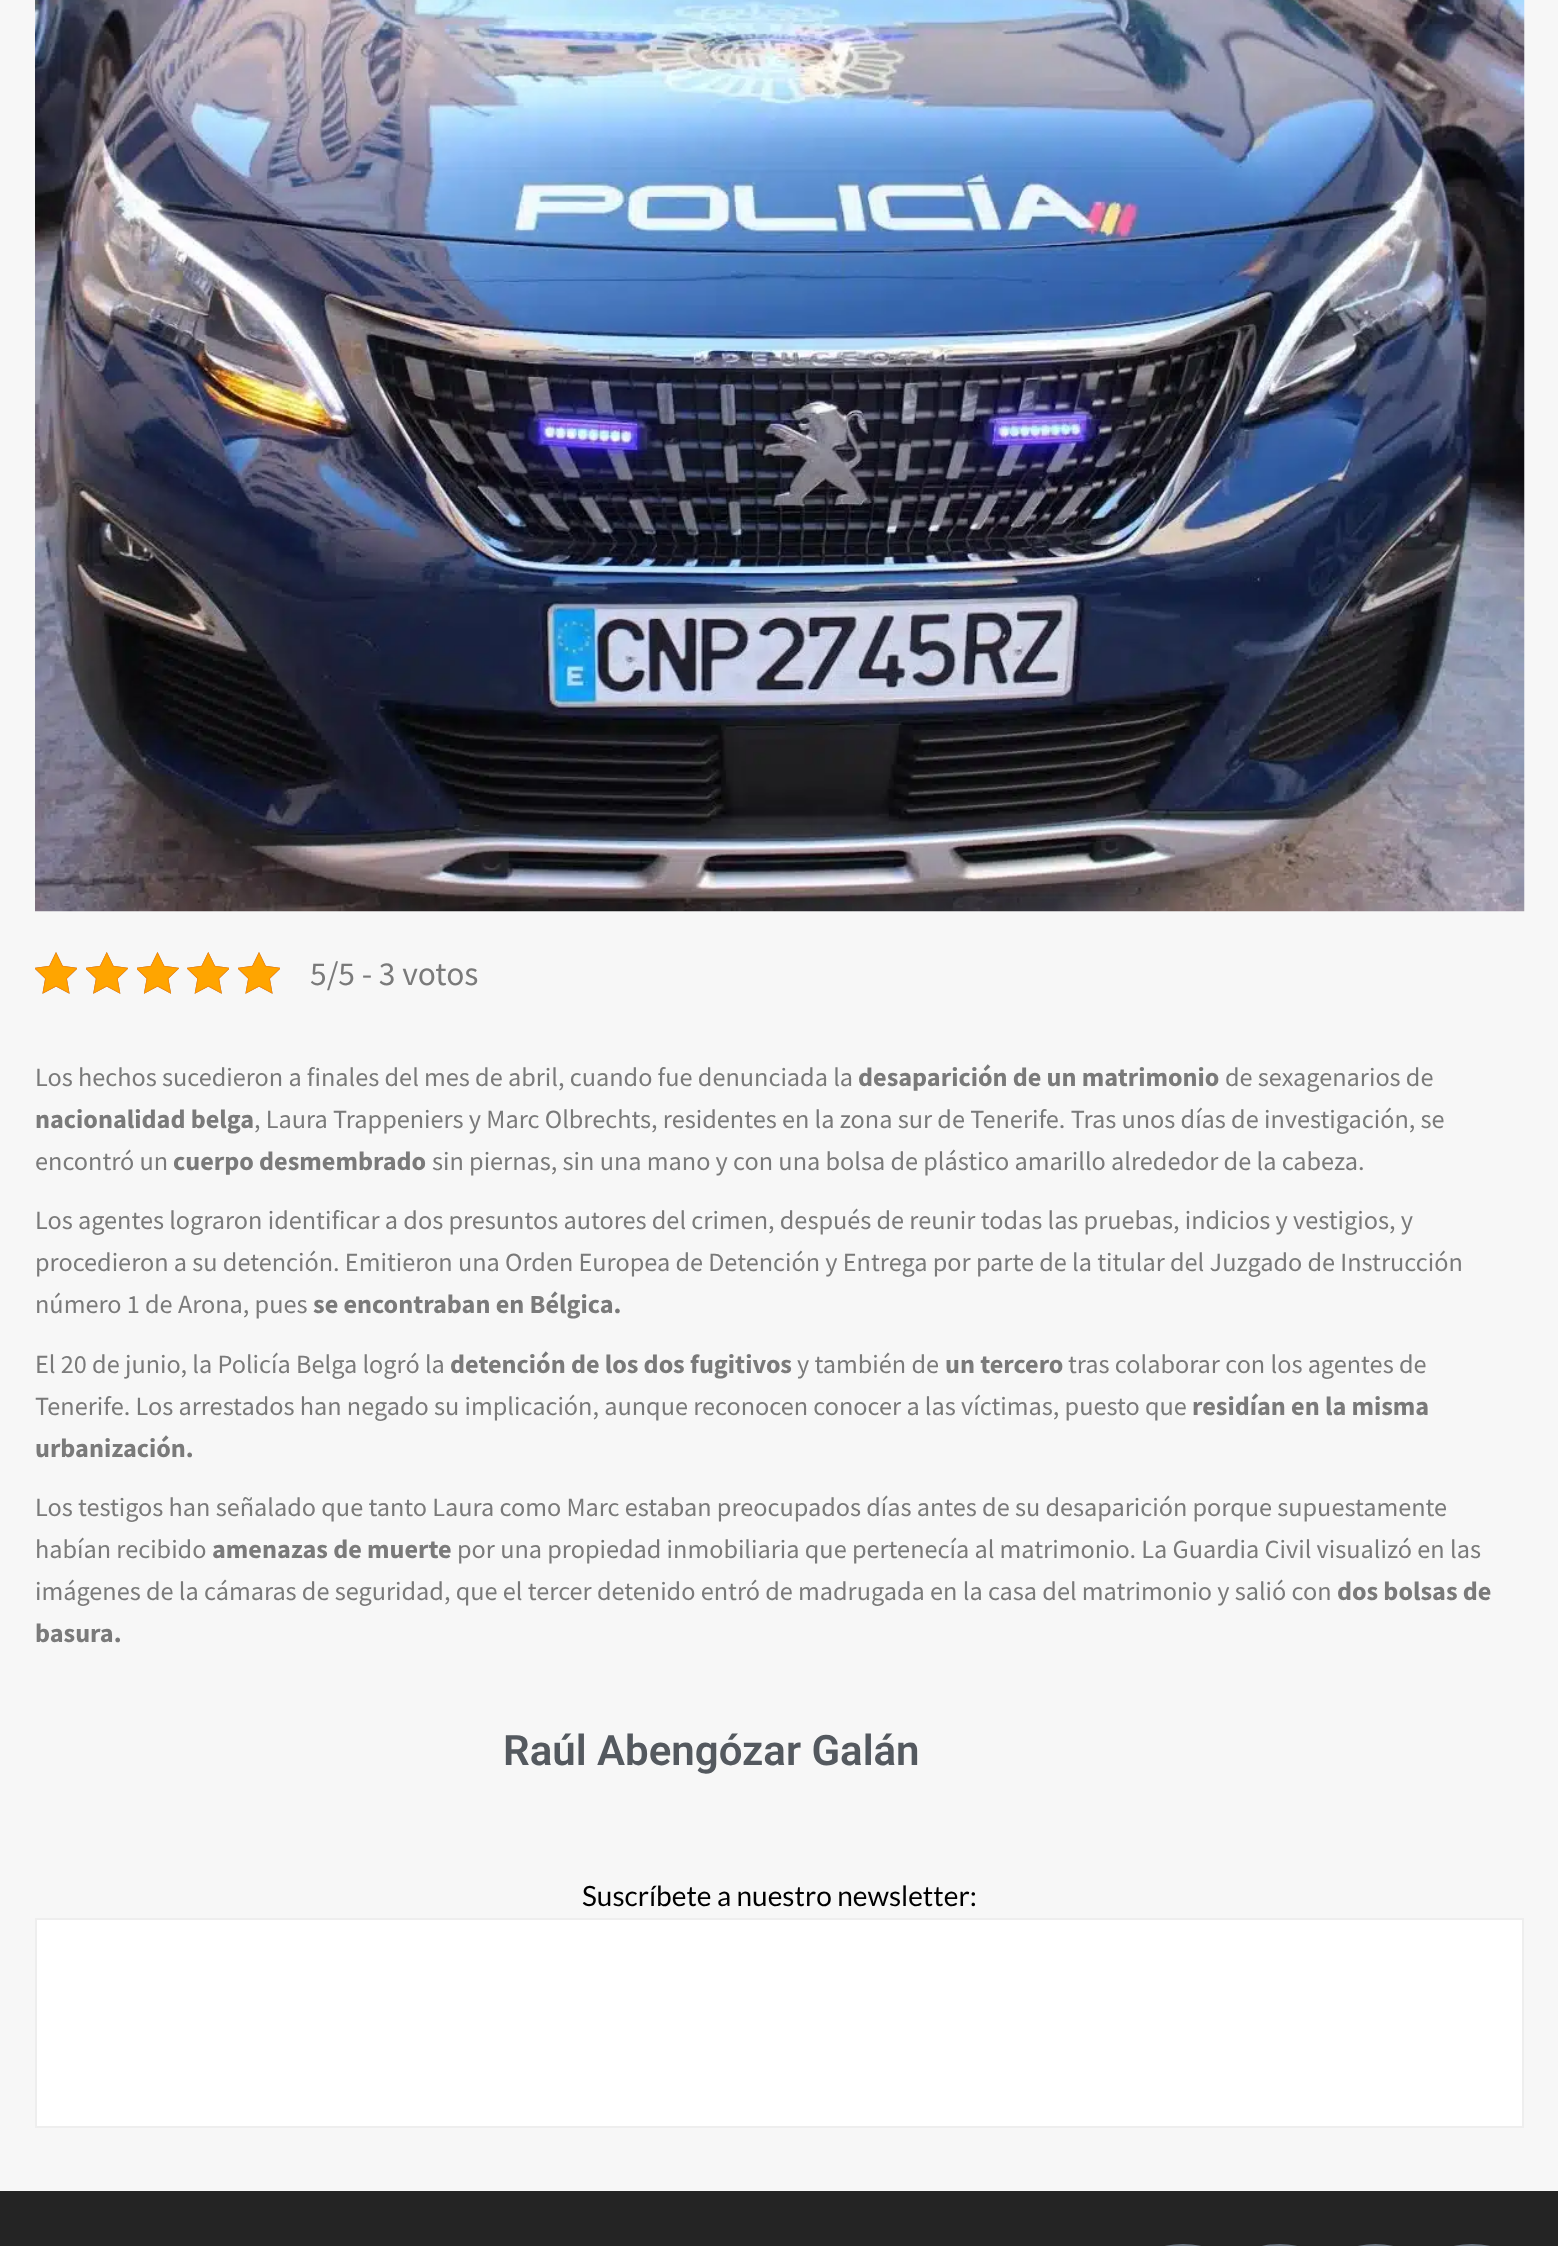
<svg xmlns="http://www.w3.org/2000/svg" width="1558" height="2246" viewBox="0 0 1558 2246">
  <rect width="100%" height="100%" fill="#f7f7f7"/>
  <image x="35" y="0" width="1490" height="912" href="img/1.png"/>
  <image x="35" y="952" width="42" height="42" href="img/2.png"/>
  <image x="86" y="952" width="42" height="42" href="img/3.png"/>
  <image x="137" y="952" width="42" height="42" href="img/4.png"/>
  <image x="187" y="952" width="42" height="42" href="img/5.png"/>
  <image x="238" y="952" width="42" height="42" href="img/2.png"/>
  <image x="35" y="952" width="42" height="42" href="img/6.png"/>
  <image x="86" y="952" width="42" height="42" href="img/7.png"/>
  <image x="137" y="952" width="42" height="42" href="img/8.png"/>
  <image x="187" y="952" width="42" height="42" href="img/9.png"/>
  <image x="238" y="952" width="42" height="42" href="img/6.png"/>
  <path d="M36 1919h1487v208H36z" fill="#fff" stroke="#eee" stroke-width="2"/>
  <path d="M0 2191h1558v55H0z" fill="#242424"/>
  <rect x="1139" y="2244" width="88" height="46" rx="43.5" fill="#69727d"/>
  <rect x="1236" y="2244" width="87" height="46" rx="43.5" fill="#69727d"/>
  <rect x="1332" y="2244" width="87" height="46" rx="43.5" fill="#69727d"/>
  <rect x="1428" y="2244" width="88" height="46" rx="43.5" fill="#69727d"/>
  <text x="310" y="985" font-family="Source Sans Pro" font-size="33.5" fill="#7a7a7a">5/5 - 3 votos</text>
  <text x="35" y="1086" font-family="Source Sans Pro" font-size="26.25" fill="#7a7a7a">Los hechos sucedieron a finales del mes de abril, cuando fue denunciada la</text>
  <text x="858" y="1086" font-family="Source Sans Pro" font-size="26.25" font-weight="bold" fill="#7a7a7a">desaparición de un matrimonio</text>
  <text x="1225" y="1086" font-family="Source Sans Pro" font-size="26.25" fill="#7a7a7a">de sexagenarios de</text>
  <text x="35" y="1128" font-family="Source Sans Pro" font-size="26.25" font-weight="bold" fill="#7a7a7a">nacionalidad belga</text>
  <g font-family="Source Sans Pro" font-size="26.25" fill="#7a7a7a">
    <text x="254" y="1128">, Laura Trappeniers y Marc Olbrechts, residentes en la zona sur de Tenerife. Tras unos días de investigación, se</text>
    <text x="35" y="1170">encontró un</text>
  </g>
  <text x="173" y="1170" font-family="Source Sans Pro" font-size="26.25" font-weight="bold" fill="#7a7a7a">cuerpo desmembrado</text>
  <g font-family="Source Sans Pro" font-size="26.25" fill="#7a7a7a">
    <text x="432" y="1170">sin piernas, sin una mano y con una bolsa de plástico amarillo alrededor de la cabeza.</text>
    <text x="35" y="1229">Los agentes lograron identificar a dos presuntos autores del crimen, después de reunir todas las pruebas, indicios y vestigios, y</text>
    <text x="35" y="1271">procedieron a su detención. Emitieron una Orden Europea de Detención y Entrega por parte de la titular del Juzgado de Instrucción</text>
    <text x="35" y="1313">número 1 de Arona, pues</text>
  </g>
  <text x="313" y="1313" font-family="Source Sans Pro" font-size="26.25" font-weight="bold" fill="#7a7a7a">se encontraban en Bélgica.</text>
  <text x="35" y="1373" font-family="Source Sans Pro" font-size="26.25" fill="#7a7a7a">El 20 de junio, la Policía Belga logró la</text>
  <text x="450" y="1373" font-family="Source Sans Pro" font-size="26.25" font-weight="bold" fill="#7a7a7a">detención de los dos fugitivos</text>
  <text x="797" y="1373" font-family="Source Sans Pro" font-size="26.25" fill="#7a7a7a">y también de</text>
  <text x="945" y="1373" font-family="Source Sans Pro" font-size="26.25" font-weight="bold" fill="#7a7a7a">un tercero</text>
  <g font-family="Source Sans Pro" font-size="26.25" fill="#7a7a7a">
    <text x="1068" y="1373">tras colaborar con los agentes de</text>
    <text x="35" y="1415">Tenerife. Los arrestados han negado su implicación, aunque reconocen conocer a las víctimas, puesto que</text>
  </g>
  <g font-family="Source Sans Pro" font-size="26.25" font-weight="bold" fill="#7a7a7a">
    <text x="1192" y="1415">residían en la misma</text>
    <text x="35" y="1457">urbanización.</text>
  </g>
  <g font-family="Source Sans Pro" font-size="26.25" fill="#7a7a7a">
    <text x="35" y="1516">Los testigos han señalado que tanto Laura como Marc estaban preocupados días antes de su desaparición porque supuestamente</text>
    <text x="35" y="1558">habían recibido</text>
  </g>
  <text x="212" y="1558" font-family="Source Sans Pro" font-size="26.25" font-weight="bold" fill="#7a7a7a">amenazas de muerte</text>
  <g font-family="Source Sans Pro" font-size="26.25" fill="#7a7a7a">
    <text x="457" y="1558">por una propiedad inmobiliaria que pertenecía al matrimonio. La Guardia Civil visualizó en las</text>
    <text x="35" y="1600">imágenes de la cámaras de seguridad, que el tercer detenido entró de madrugada en la casa del matrimonio y salió con</text>
  </g>
  <g font-family="Source Sans Pro" font-size="26.25" font-weight="bold" fill="#7a7a7a">
    <text x="1337" y="1600">dos bolsas de</text>
    <text x="35" y="1642">basura.</text>
  </g>
  <text x="503" y="1765" font-family="Roboto" font-size="42" font-weight="600" fill="#54595f">Raúl Abengózar Galán</text>
  <text x="582" y="1906" font-family="Lato" font-size="28" fill="#000">Suscríbete a nuestro newsletter:</text>
</svg>
